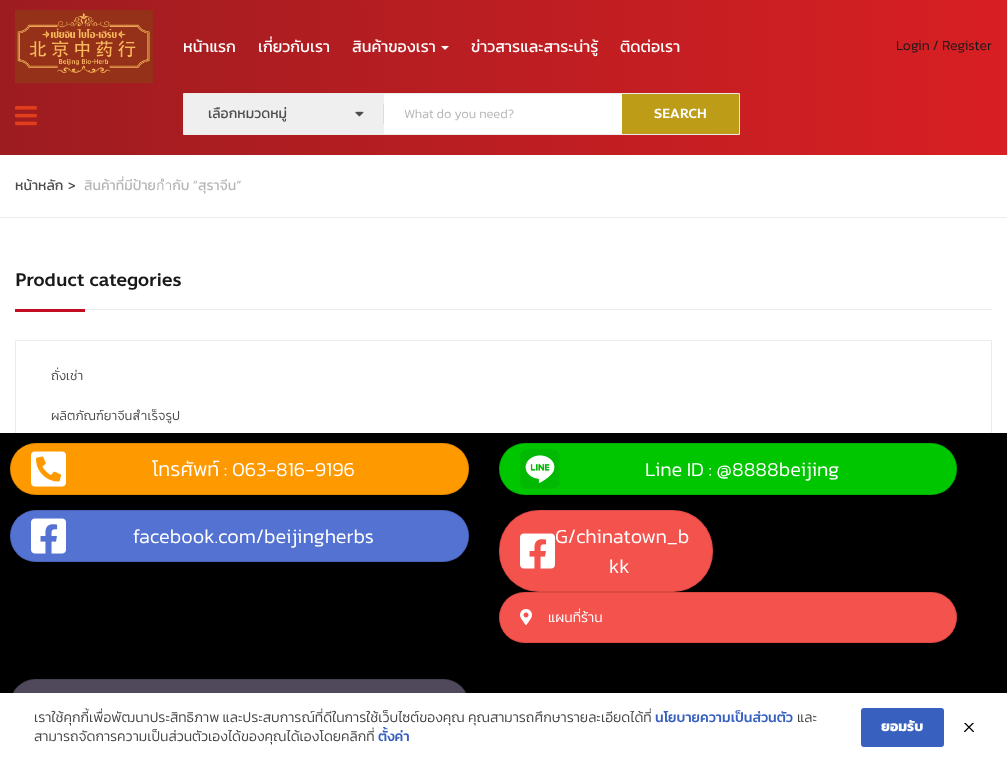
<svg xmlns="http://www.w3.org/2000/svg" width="1007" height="762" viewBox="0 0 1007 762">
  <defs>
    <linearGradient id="g1" gradientUnits="userSpaceOnUse" x1="0" y1="78" x2="1007" y2="77"><stop offset="0" stop-color="#9d1c20"/><stop offset="0.5" stop-color="#bc1e22"/><stop offset="1" stop-color="#d81f23"/></linearGradient>
    <clipPath id="clip1"><path d="M208 102h158v23H208z"/></clipPath>
  </defs>
  <rect width="100%" height="100%" fill="#fff"/>
  <path d="M0 0h1007v155H0z" fill="url(#g1)"/>
  <image x="15" y="10" width="138" height="73" href="img/1.png"/>
  <path d="M441 46H449L445 50Z" fill="#fff"/>
  <image x="15" y="106" width="22" height="20" href="img/2.png"/>
  <path d="M183.5 93.5h556v41H183.5z" fill="none" stroke="#ebebeb"/>
  <path d="M184 94h200v40H184z" fill="#efefef"/>
  <image x="355" y="111" width="9" height="6" href="img/3.png"/>
  <path d="M383 104h1v20H383z" fill="#ddd"/>
  <path d="M384 94h238v40H384z" fill="#fff"/>
  <path d="M622 94h117v40H622z" fill="#bd9c17"/>
  <path d="M0 217h1007v1H0z" fill="#ebebeb"/>
  <path d="M85 309h907v1H85z" fill="#ebebeb"/>
  <path d="M15 309h70v3H15z" fill="#c20d22"/>
  <path d="M15.5 340.5h976v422H15.5z" fill="none" stroke="#ebebeb"/>
  <path d="M0 433h1007v260H0z" fill="#000"/>
  <rect x="10" y="443" width="459" height="52" rx="26" fill="#f90"/>
  <rect x="10.5" y="443.5" width="458" height="51" rx="25.5" fill="none" stroke="#0000001a"/>
  <image x="31" y="451" width="35" height="36" href="img/4.png"/>
  <rect x="499" y="443" width="458" height="52" rx="26" fill="#00c600"/>
  <rect x="499.5" y="443.5" width="457" height="51" rx="25.5" fill="none" stroke="#0000001a"/>
  <image x="520" y="449" width="40" height="40" href="img/5.png"/>
  <rect x="10" y="510" width="459" height="52" rx="26" fill="#5472d2"/>
  <rect x="10.5" y="510.5" width="458" height="51" rx="25.5" fill="none" stroke="#0000001a"/>
  <image x="31" y="518" width="35" height="36" href="img/6.png"/>
  <rect x="499" y="510" width="214" height="82" rx="40" fill="#f4524d"/>
  <rect x="499.5" y="510.5" width="213" height="81" rx="39.5" fill="none" stroke="#0000001a"/>
  <image x="520" y="533" width="35" height="36" href="img/7.png"/>
  <rect x="499" y="592" width="458" height="51" rx="25.5" fill="#f4524d"/>
  <rect x="499.5" y="592.5" width="457" height="50" rx="25" fill="none" stroke="#0000001a"/>
  <image x="520" y="609" width="12" height="16" href="img/8.png"/>
  <rect x="10" y="679" width="459" height="51" rx="25.5" fill="#50485b"/>
  <rect x="10.5" y="679.5" width="458" height="50" rx="25" fill="none" stroke="#0000001a"/>
  <path d="M10 693h982v69H10z" fill="#fff"/>
  <rect x="861" y="708" width="83" height="39" rx="3" fill="#3860be"/>
  <image x="964" y="723" width="10" height="9" href="img/9.png"/>
  <g font-family="Kanit" font-size="16" fill="#fff">
    <text x="183" y="52">หน้าแรก</text>
    <text x="258" y="52">เกี่ยวกับเรา</text>
    <text x="352" y="52">สินค้าของเรา</text>
    <text x="471" y="52">ข่าวสารและสาระน่ารู้</text>
    <text x="620" y="52">ติดต่อเรา</text>
  </g>
  <text x="896" y="50" font-family="Kanit" font-size="14" font-weight="300" fill="#191919">Login / Register</text>
  <g clip-path="url(#clip1)">
    <text x="208" y="118" font-family="Kanit" font-size="14" fill="#4c4c4c">เลือกหมวดหมู่</text>
  </g>
  <text x="404" y="118" font-family="Kanit" font-size="13" font-weight="300" fill="#b7b7b7">What do you need?</text>
  <text x="654" y="118" font-family="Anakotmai" font-size="13" font-weight="500" fill="#fff">SEARCH</text>
  <g font-family="Kanit" font-size="14" fill="#4c4c4c">
    <text x="15" y="190">หน้าหลัก</text>
    <text x="68" y="190">&gt;</text>
  </g>
  <text x="84" y="190" font-family="Kanit" font-size="14" fill="#b7b7b7">สินค้าที่มีป้ายกำกับ “สุราจีน”</text>
  <text x="15" y="286" font-family="Anakotmai" font-size="18" font-weight="500" fill="#191919">Product categories</text>
  <g font-family="Kanit" font-size="13" font-weight="300" fill="#4c4c4c">
    <text x="51" y="380">ถั่งเช่า</text>
    <text x="51" y="420">ผลิตภัณฑ์ยาจีนสำเร็จรูป</text>
  </g>
  <g font-family="Kanit" font-size="20" font-weight="300" fill="#fff">
    <text x="152" y="476">โทรศัพท์ : 063-816-9196</text>
    <text x="645" y="476">Line ID : @8888beijing</text>
    <text x="133" y="543">facebook.com/beijingherbs</text>
    <text x="555" y="543">G/chinatown_b</text>
    <text x="609" y="573">kk</text>
  </g>
  <text x="548" y="622" font-family="Kanit" font-size="14" font-weight="300" fill="#fff">แผนที่ร้าน</text>
  <text x="34" y="722" font-family="Kanit" font-size="14" font-weight="300" fill="#444">เราใช้คุกกี้เพื่อพัฒนาประสิทธิภาพ และประสบการณ์ที่ดีในการใช้เว็บไซต์ของคุณ คุณสามารถศึกษารายละเอียดได้ที่</text>
  <text x="655" y="722" font-family="Kanit" font-size="14" font-weight="500" fill="#3860be">นโยบายความเป็นส่วนตัว</text>
  <g font-family="Kanit" font-size="14" font-weight="300" fill="#444">
    <text x="797" y="722">และ</text>
    <text x="34" y="741">สามารถจัดการความเป็นส่วนตัวเองได้ของคุณได้เองโดยคลิกที่</text>
  </g>
  <text x="378" y="741" font-family="Kanit" font-size="14" font-weight="500" fill="#3860be">ตั้งค่า</text>
  <text x="881" y="731" font-family="Kanit" font-size="14" font-weight="bold" fill="#fff">ยอมรับ</text>
</svg>
